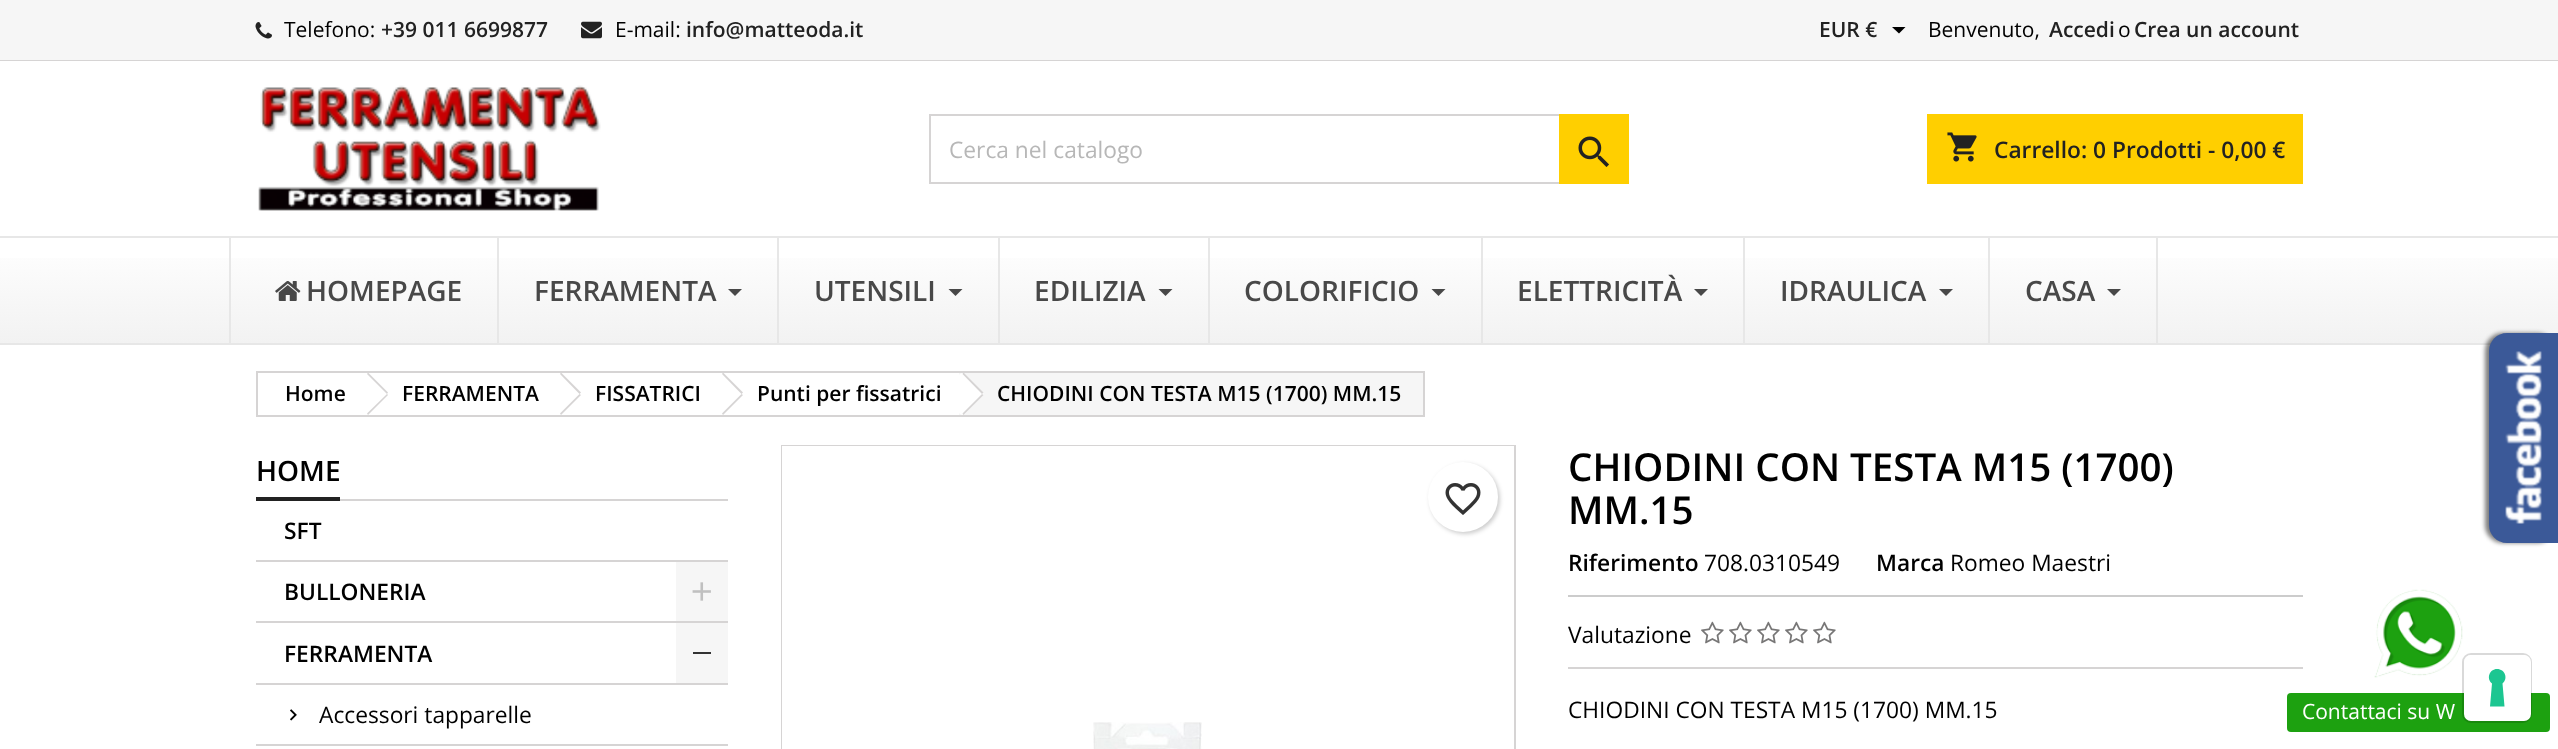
<svg xmlns="http://www.w3.org/2000/svg" width="2558" height="749" viewBox="0 0 2558 749">
  <defs>
    <linearGradient id="g1" gradientUnits="userSpaceOnUse" x1="1279" y1="238" x2="1279" y2="343"><stop offset="0" stop-color="#fff"/><stop offset="1" stop-color="#f2f2f2"/></linearGradient>
  </defs>
  <rect width="100%" height="100%" fill="#fff"/>
  <path d="M0 0h2558v60H0z" fill="#f6f6f6"/>
  <path d="M0 60h2558v1H0z" fill="#d6d4d4"/>
  <image x="255" y="22" width="17" height="17" href="img/1.png"/>
  <image x="581" y="21" width="21" height="18" href="img/2.png"/>
  <path d="M1892 27H1905.5L1899 33.5Z" fill="#000"/>
  <image x="258" y="85" width="343" height="126" href="img/3.png"/>
  <path d="M930 115h698v68H930z" fill="none" stroke="#d6d4d4" stroke-width="2"/>
  <path d="M1559 114h70v70H1559z" fill="#ffcf00"/>
  <image x="1578" y="136" width="31" height="31" href="img/4.png"/>
  <path d="M1927 114h376v70H1927z" fill="#ffcf00"/>
  <image x="1947" y="132" width="30" height="30" href="img/5.png"/>
  <path d="M0 258h2558v85H0z" fill="url(#g1)"/>
  <path d="M0 236h2558v2H0z" fill="#e7e7e7"/>
  <path d="M0 343h2491v2H0z" fill="#e7e7e7"/>
  <path d="M497 238h2v105H497z" fill="#e7e7e7"/>
  <path d="M229 238h2v105H229z" fill="#e7e7e7"/>
  <image x="275" y="281" width="26" height="20" href="img/6.png"/>
  <path d="M777 238h2v105H777z" fill="#e7e7e7"/>
  <path d="M728 289H742L735 296Z" fill="#484848"/>
  <path d="M998 238h2v105H998z" fill="#e7e7e7"/>
  <path d="M948.5 289H962.5L955.5 296Z" fill="#484848"/>
  <path d="M1208 238h2v105H1208z" fill="#e7e7e7"/>
  <path d="M1158.5 289H1172.5L1165.5 296Z" fill="#484848"/>
  <path d="M1481 238h2v105H1481z" fill="#e7e7e7"/>
  <path d="M1431.5 289H1445.5L1438.5 296Z" fill="#484848"/>
  <path d="M1743 238h2v105H1743z" fill="#e7e7e7"/>
  <path d="M1694 289H1708L1701 296Z" fill="#484848"/>
  <path d="M1988 238h2v105H1988z" fill="#e7e7e7"/>
  <path d="M1939 289H1953L1946 296Z" fill="#484848"/>
  <path d="M2156 238h2v105H2156z" fill="#e7e7e7"/>
  <path d="M2107 289H2121L2114 296Z" fill="#484848"/>
  <path d="M257 372h1167v44H257z" fill="none" stroke="#d6d4d4" stroke-width="2"/>
  <path d="M368 372.5L388 392.5L387 394L367 374ZM387 394L388 395L368 415L367 413.5Z" fill="#d6d4d4"/>
  <path d="M561 372.5L581 392.5L579.5 394L560 374ZM579.5 394L581 395L561 415L560 413.5Z" fill="#d6d4d4"/>
  <path d="M723 372.5L743 392.5L741.5 394L722 374ZM741.5 394L743 395L723 415L722 413.5Z" fill="#d6d4d4"/>
  <path d="M959 373h464v42H959z" fill="#f6f6f6"/>
  <path d="M965 374L982 391C984 393 984 395 982 396L965 414C963 415 961 415 960 414L943 396C941 395 941 393 943 391L960 374C961 373 963 373 965 374Z" fill="#fff"/>
  <path d="M963.5 372.5L983.5 392.5L982 394L962.5 374ZM982 394L983.5 395L963.5 415L962.5 413.5Z" fill="#d6d4d4"/>
  <path d="M340 499h388v2H340z" fill="#d6d4d4"/>
  <path d="M256 497h84v4H256z" fill="#222"/>
  <path d="M256 560h472v2H256z" fill="#d6d4d4"/>
  <path d="M256 621h472v2H256z" fill="#d6d4d4"/>
  <path d="M676 562h52v59H676z" fill="#f6f6f6"/>
  <image x="692" y="582" width="19" height="19" href="img/7.png"/>
  <path d="M256 683h472v2H256z" fill="#d6d4d4"/>
  <path d="M676 623h52v60H676z" fill="#f6f6f6"/>
  <path d="M693 652h18v2H693z" fill="#333"/>
  <path d="M256 744h472v2H256z" fill="#d6d4d4"/>
  <image x="290" y="709" width="7" height="12" href="img/8.png"/>
  <path d="M782 446h733v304H782z" fill="none" stroke="#d6d4d4" stroke-width="2"/>
  <path d="M782 446h732v303H782z" fill="#fff"/>
  <image x="1093" y="722" width="109" height="27" href="img/9.png"/>
  <path d="M1568 595h735v2H1568z" fill="#ccc"/>
  <image x="1701" y="621" width="23" height="23" href="img/10.png"/>
  <image x="1729" y="621" width="23" height="23" href="img/10.png"/>
  <image x="1757" y="621" width="23" height="23" href="img/10.png"/>
  <image x="1785" y="621" width="23" height="23" href="img/10.png"/>
  <image x="1813" y="621" width="23" height="23" href="img/10.png"/>
  <rect x="1430" y="464" width="70" height="70" rx="35" fill="#00000033" filter="blur(2px)"/>
  <circle cx="1463" cy="497" r="35" fill="#fff"/>
  <image x="1445" y="483" width="36" height="32" href="img/11.png"/>
  <path d="M1568 667h735v2H1568z" fill="#d6d4d4"/>
  <rect x="2485" y="333" width="70" height="210" rx="18" fill="#00000080" filter="blur(2px)"/>
  <path d="M2507 333H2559V543H2507C2497 543 2489 535 2489 525V351C2489 341 2497 333 2507 333Z" fill="#3b5998"/>
  <image x="2505" y="351" width="37" height="173" href="img/12.png"/>
  <image x="2374" y="589" width="89" height="89" href="img/13.png"/>
  <rect x="2287" y="693" width="263" height="39" rx="4" fill="#1da110"/>
  <rect x="2463" y="654" width="68" height="68" rx="8" fill="none" stroke="#00000026" stroke-width="2"/>
  <rect x="2464" y="655" width="67" height="66" rx="7" fill="#fff"/>
  <path d="M2497 669C2505 669 2508.5 678.5 2502.5 683.5L2504.5 706.5H2490L2492 683.5C2486 678.5 2489.5 669 2497 669Z" fill="#1cc691" fill-rule="evenodd"/>
  <text x="284" y="37" font-family="Open Sans" font-size="21" fill="#000">Telefono:</text>
  <text x="381" y="37" font-family="Open Sans" font-size="21" font-weight="600" fill="#222">+39 011 6699877</text>
  <text x="615" y="37" font-family="Open Sans" font-size="21" fill="#000">E-mail:</text>
  <g font-family="Open Sans" font-size="21" font-weight="600" fill="#222">
    <text x="686" y="37">info@matteoda.it</text>
    <text x="1819" y="37">EUR €</text>
  </g>
  <text x="1928" y="37" font-family="Open Sans" font-size="21" fill="#000">Benvenuto,</text>
  <text x="2049" y="37" font-family="Open Sans" font-size="21" font-weight="600" fill="#222">Accedi</text>
  <text x="2118" y="37" font-family="Open Sans" font-size="21" fill="#000">o</text>
  <text x="2134" y="37" font-family="Open Sans" font-size="21" font-weight="600" fill="#222">Crea un account</text>
  <text x="949" y="158" font-family="Open Sans" font-size="22.75" fill="#b7b7b7">Cerca nel catalogo</text>
  <text x="1994" y="158" font-family="Open Sans" font-size="22.75" font-weight="600" fill="#222">Carrello: 0 Prodotti - 0,00 €</text>
  <g font-family="Open Sans" font-size="28" font-weight="600" fill="#484848">
    <text x="306" y="301">HOMEPAGE</text>
    <text x="534" y="301">FERRAMENTA</text>
    <text x="814" y="301">UTENSILI</text>
    <text x="1034" y="301">EDILIZIA</text>
    <text x="1244" y="301">COLORIFICIO</text>
    <text x="1517" y="301">ELETTRICITÀ</text>
    <text x="1780" y="301">IDRAULICA</text>
    <text x="2025" y="301">CASA</text>
  </g>
  <g font-family="Open Sans" font-size="21" font-weight="600" fill="#000">
    <text x="285" y="401">Home</text>
    <text x="402" y="401">FERRAMENTA</text>
    <text x="595" y="401">FISSATRICI</text>
    <text x="757" y="401">Punti per fissatrici</text>
    <text x="997" y="401">CHIODINI CON TESTA M15 (1700) MM.15</text>
  </g>
  <text x="256" y="481" font-family="Open Sans" font-size="28" font-weight="600" fill="#000">HOME</text>
  <g font-family="Open Sans" font-size="22.75" font-weight="600" fill="#000">
    <text x="284" y="539">SFT</text>
    <text x="284" y="600">BULLONERIA</text>
    <text x="284" y="662">FERRAMENTA</text>
  </g>
  <text x="319" y="723" font-family="Open Sans" font-size="22.75" fill="#000">Accessori tapparelle</text>
  <g font-family="Open Sans" font-size="38.5" font-weight="600" fill="#000">
    <text x="1568" y="481">CHIODINI CON TESTA M15 (1700)</text>
    <text x="1568" y="524">MM.15</text>
  </g>
  <text x="1568" y="571" font-family="Open Sans" font-size="22.75" font-weight="600" fill="#000">Riferimento</text>
  <text x="1704" y="571" font-family="Open Sans" font-size="22.75" fill="#000">708.0310549</text>
  <text x="1876" y="571" font-family="Open Sans" font-size="22.75" font-weight="600" fill="#000">Marca</text>
  <g font-family="Open Sans" font-size="22.75" fill="#000">
    <text x="1950" y="571">Romeo Maestri</text>
    <text x="1568" y="643">Valutazione</text>
    <text x="1568" y="718">CHIODINI CON TESTA M15 (1700) MM.15</text>
  </g>
  <text x="2302" y="719" font-family="Open Sans" font-size="21" fill="#fff">Contattaci su W</text>
</svg>
